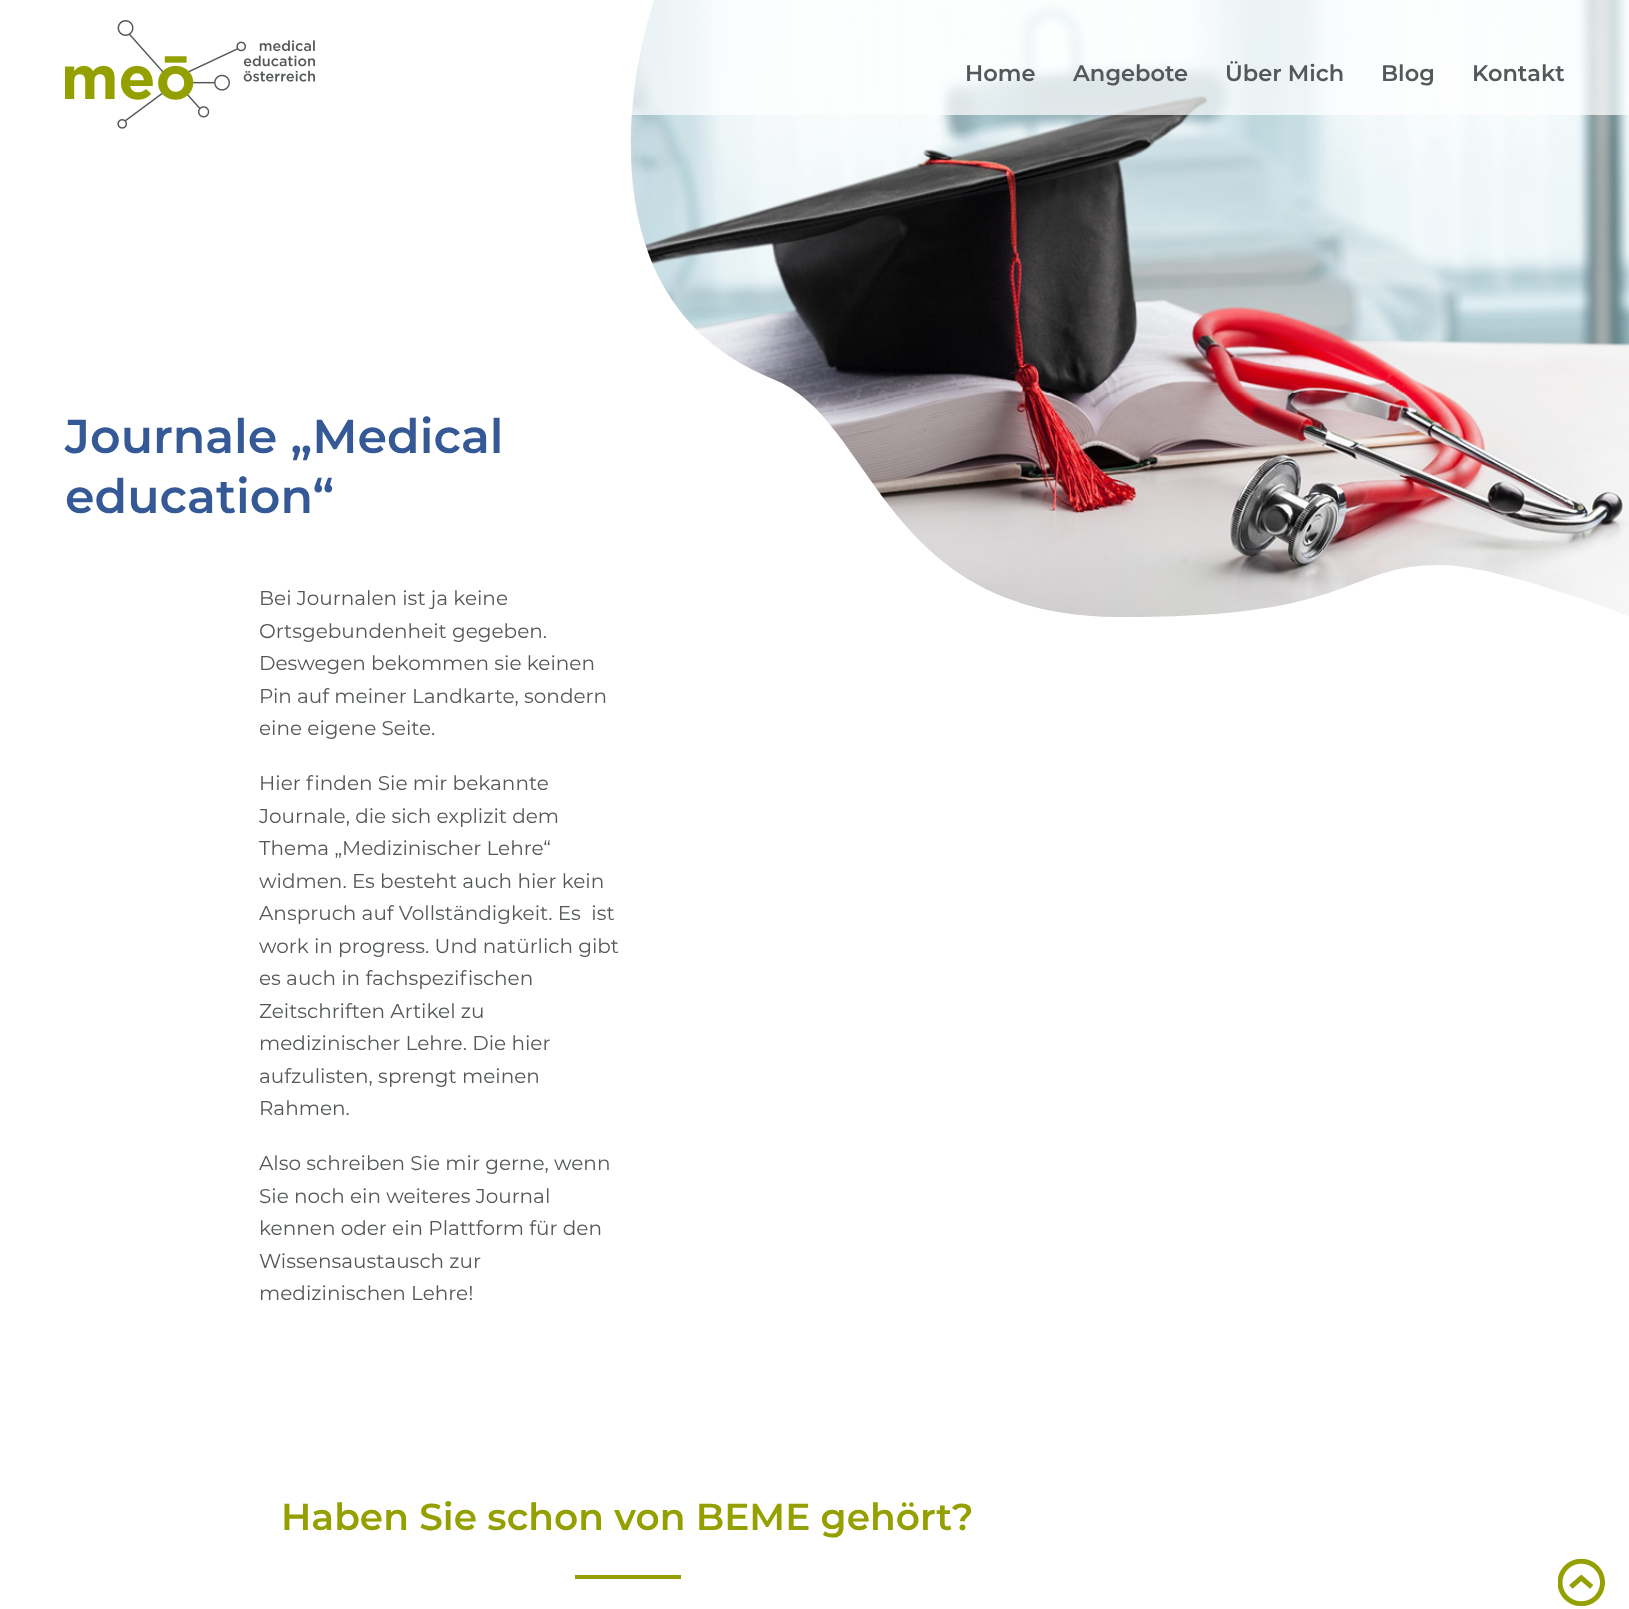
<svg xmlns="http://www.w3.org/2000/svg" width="1629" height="1609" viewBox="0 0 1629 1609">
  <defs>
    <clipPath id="clip1"><path d="M626 0h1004v619H626z"/></clipPath>
  </defs>
  <rect width="100%" height="100%" fill="#fff"/>
  <image x="65" y="20" width="250" height="109" href="img/1.png"/>
  <image x="630" y="0" width="999" height="617" href="img/2.png"/>
  <g clip-path="url(#clip1)">
    <path d="M1117 617C880 615 876 420 773 379C553 291 654 0 654 0H626V625H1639V620C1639 620 1499 564 1438 565C1343 566 1355 619 1117 617Z" fill="#fff"/>
  </g>
  <path d="M632 0h997v115H632z" fill="#ffffffb3"/>
  <path d="M575 1575h106v4H575z" fill="#94a000"/>
  <image x="1558" y="1559" width="47" height="47" href="img/3.png"/>
  <g font-family="Montserrat" font-size="22.5" font-weight="600" fill="#545859">
    <text x="965" y="81">Home</text>
    <text x="1073" y="81">Angebote</text>
    <text x="1225" y="81">Über Mich</text>
    <text x="1381" y="81">Blog</text>
    <text x="1472" y="81">Kontakt</text>
  </g>
  <g font-family="Montserrat" font-size="47.5" font-weight="600" fill="#345996">
    <text x="65" y="453">Journale „Medical</text>
    <text x="65" y="513">education“</text>
  </g>
  <g font-family="Montserrat" font-size="20" fill="#545859">
    <text x="259" y="605">Bei Journalen ist ja keine</text>
    <text x="259" y="638">Ortsgebundenheit gegeben.</text>
    <text x="259" y="670">Deswegen bekommen sie keinen</text>
    <text x="259" y="703">Pin auf meiner Landkarte, sondern</text>
    <text x="259" y="735">eine eigene Seite.</text>
    <text x="259" y="790">Hier finden Sie mir bekannte</text>
    <text x="259" y="823">Journale, die sich explizit dem</text>
    <text x="259" y="855">Thema „Medizinischer Lehre“</text>
    <text x="259" y="888">widmen. Es besteht auch hier kein</text>
    <text x="259" y="920" xml:space="preserve">Anspruch auf Vollständigkeit. Es  ist</text>
    <text x="259" y="953">work in progress. Und natürlich gibt</text>
    <text x="259" y="985">es auch in fachspezifischen</text>
    <text x="259" y="1018">Zeitschriften Artikel zu</text>
    <text x="259" y="1050">medizinischer Lehre. Die hier</text>
    <text x="259" y="1083">aufzulisten, sprengt meinen</text>
    <text x="259" y="1115">Rahmen.</text>
    <text x="259" y="1170">Also schreiben Sie mir gerne, wenn</text>
    <text x="259" y="1203">Sie noch ein weiteres Journal</text>
    <text x="259" y="1235">kennen oder ein Plattform für den</text>
    <text x="259" y="1268">Wissensaustausch zur</text>
    <text x="259" y="1300">medizinischen Lehre!</text>
  </g>
  <text x="281" y="1530" font-family="Montserrat" font-size="37.5" font-weight="600" fill="#94a000">Haben Sie schon von BEME gehört?</text>
</svg>
